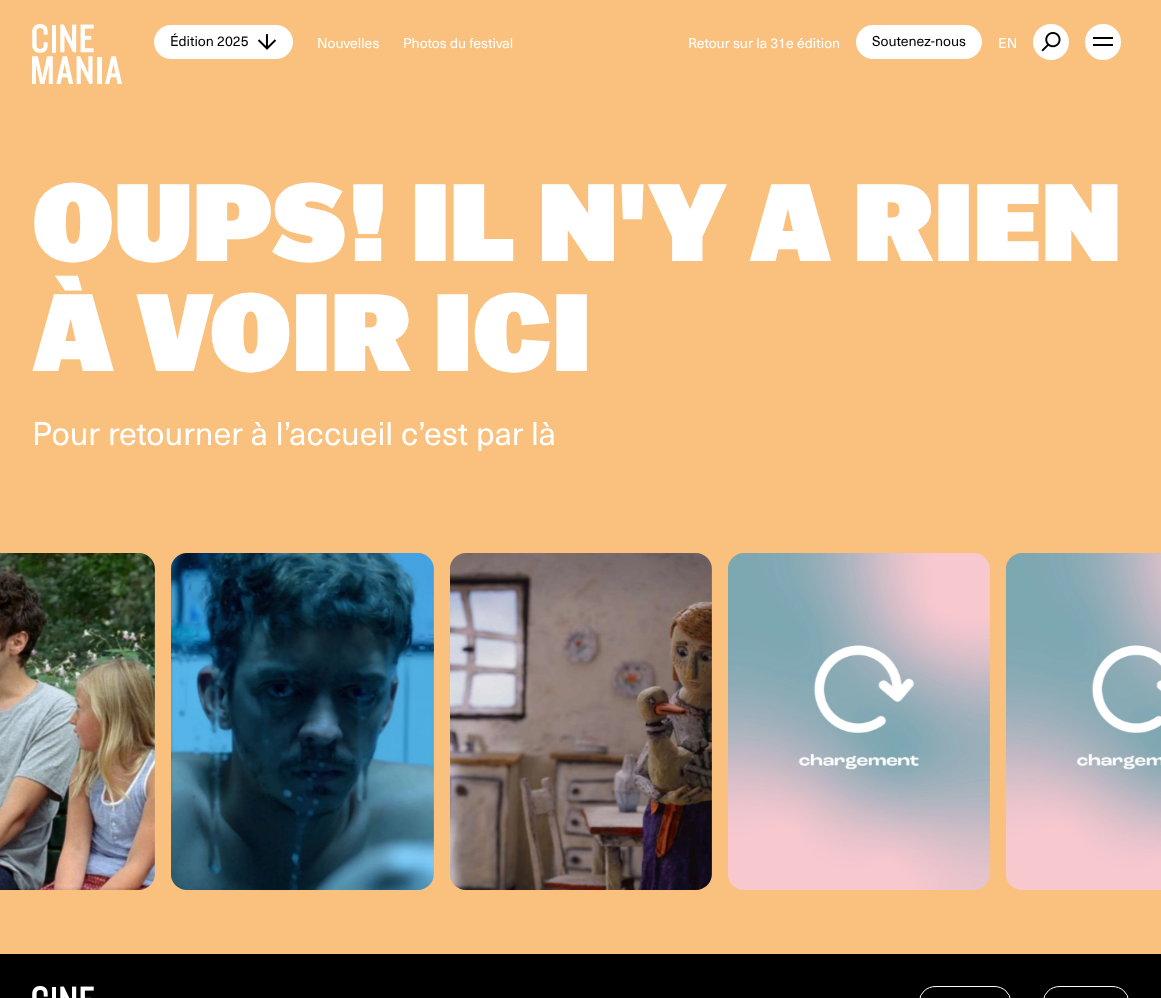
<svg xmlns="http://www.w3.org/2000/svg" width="1161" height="998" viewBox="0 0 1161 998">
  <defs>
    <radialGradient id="g1" gradientUnits="userSpaceOnUse" cx="0" cy="0" r="1" gradientTransform="matrix(416 0 0 357 570 42)"><stop offset="0.34" stop-color="#b1b1b1"/><stop offset="0.54" stop-color="#ededed"/><stop offset="0.67" stop-color="#fff"/></radialGradient>
    <radialGradient id="g2" gradientUnits="userSpaceOnUse" cx="0" cy="0" r="1" gradientTransform="matrix(377 0 0 357 1233 42)"><stop offset="0.34" stop-color="#b1b1b1"/><stop offset="0.54" stop-color="#ededed"/><stop offset="0.67" stop-color="#fff"/></radialGradient>
    <radialGradient id="g3" gradientUnits="userSpaceOnUse" cx="0" cy="0" r="1" gradientTransform="matrix(108 0 0 378 1141 42)"><stop offset="0.34" stop-color="#b1b1b1"/><stop offset="0.54" stop-color="#ededed"/><stop offset="0.67" stop-color="#fff"/></radialGradient>
    <radialGradient id="g4" gradientUnits="userSpaceOnUse" cx="0" cy="0" r="1" gradientTransform="matrix(108 0 0 378 1193 42)"><stop offset="0.34" stop-color="#b1b1b1"/><stop offset="0.54" stop-color="#ededed"/><stop offset="0.67" stop-color="#fff"/></radialGradient>
  </defs>
  <rect width="100%" height="100%" fill="#fac07e"/>
  <image x="32" y="24" width="90" height="60" href="img/1.png"/>
  <rect x="154" y="25" width="139" height="34" rx="17" fill="url(#g1)"/>
  <image x="257" y="34" width="20" height="16" href="img/2.png"/>
  <rect x="856" y="25" width="126" height="34" rx="17" fill="url(#g2)"/>
  <circle cx="1051" cy="42" r="18" fill="url(#g3)"/>
  <image x="1041" y="32" width="20" height="20" href="img/3.png"/>
  <circle cx="1103" cy="42" r="18" fill="url(#g4)"/>
  <image x="1093" y="37" width="20" height="9" href="img/4.png"/>
  <image x="0" y="553" width="155" height="337" href="img/5.png"/>
  <image x="171" y="553" width="263" height="337" href="img/6.png"/>
  <image x="450" y="553" width="262" height="337" href="img/7.png"/>
  <image x="728" y="553" width="262" height="337" href="img/8.png"/>
  <image x="1006" y="553" width="155" height="337" href="img/9.png"/>
  <path d="M0 954h1161v44H0z" fill="#000"/>
  <image x="32" y="986" width="62" height="12" href="img/10.png"/>
  <rect x="919.5" y="986.5" width="91" height="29" rx="16.5" fill="none" stroke="#fff"/>
  <rect x="1043.5" y="986.5" width="85" height="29" rx="16.5" fill="none" stroke="#fff"/>
  <text x="170" y="46" font-family="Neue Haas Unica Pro" font-size="14" fill="#000">Édition 2025</text>
  <g font-family="Neue Haas Unica Pro" font-size="14" fill="#fff">
    <text x="317" y="48">Nouvelles</text>
    <text x="403" y="48">Photos du festival</text>
    <text x="688" y="48">Retour sur la 31e édition</text>
  </g>
  <text x="872" y="46" font-family="Neue Haas Unica Pro" font-size="14" fill="#000">Soutenez-nous</text>
  <text x="998" y="48" font-family="Neue Haas Unica Pro" font-size="14" fill="#fff">EN</text>
  <g font-family="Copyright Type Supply" font-size="109.75" font-weight="800" fill="#fff">
    <text x="32" y="261">OUPS! IL N'Y A RIEN</text>
    <text x="32" y="371">À VOIR ICI</text>
  </g>
  <g font-family="Neue Haas Unica Pro" font-size="32.25" fill="#fff">
    <text x="32" y="445" word-spacing="0.5">Pour retourner à l’accueil c’est par</text>
    <text x="531" y="445">là</text>
  </g>
</svg>
